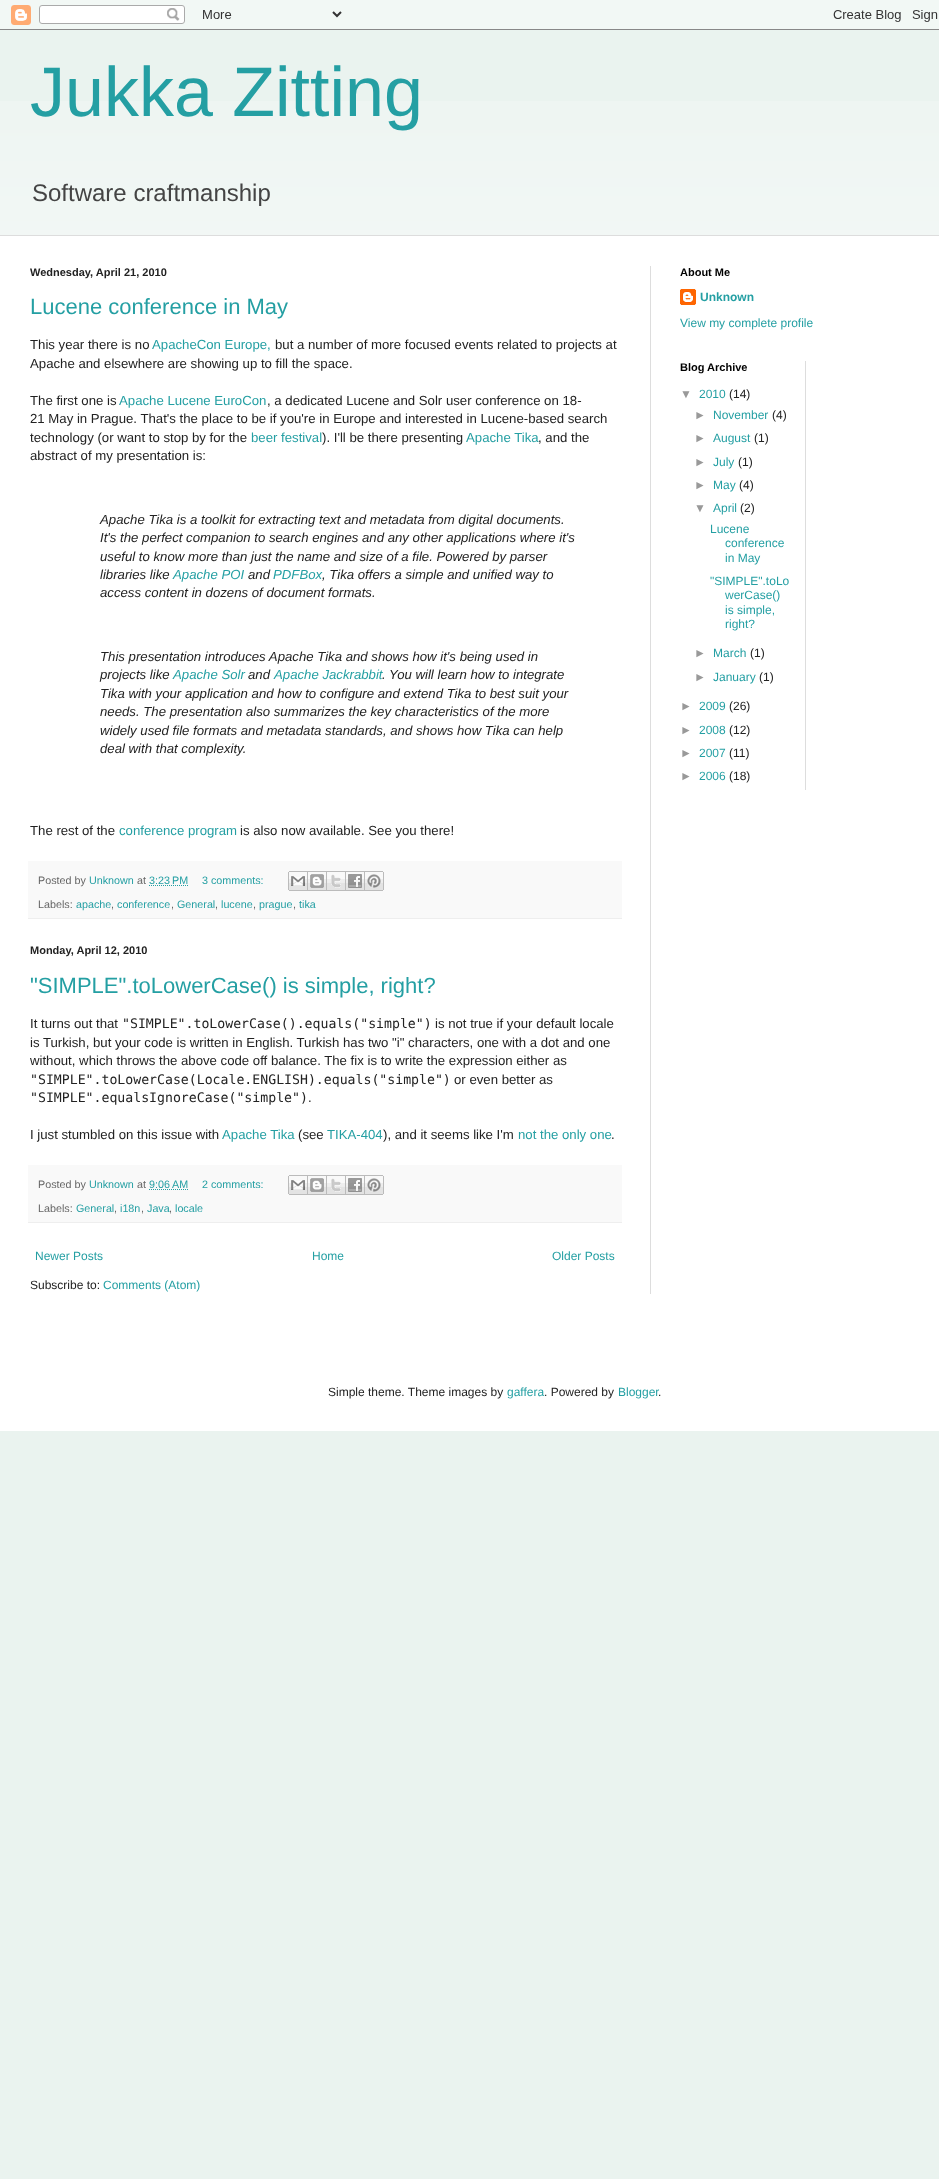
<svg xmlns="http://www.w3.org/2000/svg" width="939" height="2179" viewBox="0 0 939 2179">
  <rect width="100%" height="100%" fill="#eaf3ef"/>
  <image x="0" y="0" width="939" height="30" href="img/1.png"/>
  <path d="M0 236h939v1195H0z" fill="#fff"/>
  <path d="M0 235h939v1H0z" fill="#ddd"/>
  <path d="M650 266h1v1028H650z" fill="#ddd"/>
  <path d="M28 861h594v57H28z" fill="#f9f9f9"/>
  <path d="M28 918h594v1H28z" fill="#eee"/>
  <path d="M149 885.5H188.5" fill="none" stroke="#249fa3" stroke-dasharray="1 1"/>
  <image x="288" y="871" width="20" height="20" href="img/2.png"/>
  <image x="308" y="871" width="19" height="20" href="img/3.png"/>
  <image x="327" y="871" width="19" height="20" href="img/4.png"/>
  <image x="346" y="871" width="19" height="20" href="img/5.png"/>
  <image x="365" y="871" width="19" height="20" href="img/6.png"/>
  <path d="M28 1165h594v57H28z" fill="#f9f9f9"/>
  <path d="M28 1222h594v1H28z" fill="#eee"/>
  <path d="M149 1189.5H188.5" fill="none" stroke="#249fa3" stroke-dasharray="1 1"/>
  <image x="288" y="1175" width="20" height="20" href="img/2.png"/>
  <image x="308" y="1175" width="19" height="20" href="img/3.png"/>
  <image x="327" y="1175" width="19" height="20" href="img/4.png"/>
  <image x="346" y="1175" width="19" height="20" href="img/5.png"/>
  <image x="365" y="1175" width="19" height="20" href="img/6.png"/>
  <image x="680" y="289" width="16" height="16" href="img/7.png"/>
  <path d="M805 361h1v429H805z" fill="#ddd"/>
  <image x="0" y="101" width="939" height="134" href="img/8.png"/>
  <text x="30" y="116" font-family="Liberation Sans" font-size="70" fill="#249fa3">Jukka Zitting</text>
  <text x="32" y="201" font-family="Liberation Sans" font-size="24" fill="#444">Software craftmanship</text>
  <text x="30" y="276" font-family="Liberation Sans" font-size="11" font-weight="bold" fill="#222">Wednesday, April 21, 2010</text>
  <text x="30" y="314" font-family="Liberation Sans" font-size="22" fill="#249fa3">Lucene conference in May</text>
  <text x="30" y="349" font-family="Liberation Sans" font-size="13.2" fill="#222">This year there is no</text>
  <text x="152" y="349" font-family="Liberation Sans" font-size="13.2" fill="#249fa3">ApacheCon Europe,</text>
  <g font-family="Liberation Sans" font-size="13.2" fill="#222">
    <text x="275" y="349">but a number of more focused events related to projects at</text>
    <text x="30" y="368">Apache and elsewhere are showing up to fill the space.</text>
    <text x="30" y="405">The first one is</text>
  </g>
  <text x="119" y="405" font-family="Liberation Sans" font-size="13.2" fill="#249fa3">Apache Lucene EuroCon</text>
  <g font-family="Liberation Sans" font-size="13.2" fill="#222">
    <text x="267" y="405">, a dedicated Lucene and Solr user conference on 18-</text>
    <text x="30" y="423">21 May in Prague. That's the place to be if you're in Europe and interested in Lucene-based search</text>
    <text x="30" y="442">technology (or want to stop by for the</text>
  </g>
  <text x="251" y="442" font-family="Liberation Sans" font-size="13.2" fill="#249fa3">beer festival</text>
  <text x="322" y="442" font-family="Liberation Sans" font-size="13.2" fill="#222">). I'll be there presenting</text>
  <text x="466" y="442" font-family="Liberation Sans" font-size="13.2" fill="#249fa3">Apache Tika</text>
  <g font-family="Liberation Sans" font-size="13.2" fill="#222">
    <text x="538" y="442">, and the</text>
    <text x="30" y="460">abstract of my presentation is:</text>
  </g>
  <g font-family="Liberation Sans" font-size="13.2" font-style="italic" fill="#222">
    <text x="100" y="524">Apache Tika is a toolkit for extracting text and metadata from digital documents.</text>
    <text x="100" y="542">It's the perfect companion to search engines and any other applications where it's</text>
    <text x="100" y="561">useful to know more than just the name and size of a file. Powered by parser</text>
    <text x="100" y="579">libraries like</text>
  </g>
  <text x="173" y="579" font-family="Liberation Sans" font-size="13.2" font-style="italic" fill="#249fa3">Apache POI</text>
  <text x="248" y="579" font-family="Liberation Sans" font-size="13.2" font-style="italic" fill="#222">and</text>
  <text x="273" y="579" font-family="Liberation Sans" font-size="13.2" font-style="italic" fill="#249fa3">PDFBox</text>
  <g font-family="Liberation Sans" font-size="13.2" font-style="italic" fill="#222">
    <text x="322" y="579">, Tika offers a simple and unified way to</text>
    <text x="100" y="597">access content in dozens of document formats.</text>
    <text x="100" y="661">This presentation introduces Apache Tika and shows how it's being used in</text>
    <text x="100" y="679">projects like</text>
  </g>
  <text x="173" y="679" font-family="Liberation Sans" font-size="13.2" font-style="italic" fill="#249fa3">Apache Solr</text>
  <text x="248" y="679" font-family="Liberation Sans" font-size="13.2" font-style="italic" fill="#222">and</text>
  <text x="274" y="679" font-family="Liberation Sans" font-size="13.2" font-style="italic" fill="#249fa3">Apache Jackrabbit</text>
  <g font-family="Liberation Sans" font-size="13.2" font-style="italic" fill="#222">
    <text x="382" y="679">. You will learn how to integrate</text>
    <text x="100" y="698">Tika with your application and how to configure and extend Tika to best suit your</text>
    <text x="100" y="716">needs. The presentation also summarizes the key characteristics of the more</text>
    <text x="100" y="735">widely used file formats and metadata standards, and shows how Tika can help</text>
    <text x="100" y="753">deal with that complexity.</text>
  </g>
  <text x="30" y="835" font-family="Liberation Sans" font-size="13.2" fill="#222">The rest of the</text>
  <text x="119" y="835" font-family="Liberation Sans" font-size="13.2" fill="#249fa3">conference program</text>
  <text x="240" y="835" font-family="Liberation Sans" font-size="13.2" fill="#222">is also now available. See you there!</text>
  <text x="38" y="884" font-family="Liberation Sans" font-size="10.75" fill="#666">Posted by</text>
  <text x="89" y="884" font-family="Liberation Sans" font-size="10.75" fill="#249fa3">Unknown</text>
  <text x="137" y="884" font-family="Liberation Sans" font-size="10.75" fill="#666">at</text>
  <g font-family="Liberation Sans" font-size="10.75" fill="#249fa3">
    <text x="149" y="884">3:23 PM</text>
    <text x="202" y="884">3 comments:</text>
  </g>
  <text x="38" y="908" font-family="Liberation Sans" font-size="10.75" fill="#666">Labels:</text>
  <text x="76" y="908" font-family="Liberation Sans" font-size="10.75" fill="#249fa3">apache</text>
  <text x="111" y="908" font-family="Liberation Sans" font-size="10.75" fill="#666">,</text>
  <text x="117" y="908" font-family="Liberation Sans" font-size="10.75" fill="#249fa3">conference</text>
  <text x="171" y="908" font-family="Liberation Sans" font-size="10.75" fill="#666">,</text>
  <text x="177" y="908" font-family="Liberation Sans" font-size="10.75" fill="#249fa3">General</text>
  <text x="215" y="908" font-family="Liberation Sans" font-size="10.75" fill="#666">,</text>
  <text x="221" y="908" font-family="Liberation Sans" font-size="10.75" fill="#249fa3">lucene</text>
  <text x="253" y="908" font-family="Liberation Sans" font-size="10.75" fill="#666">,</text>
  <text x="259" y="908" font-family="Liberation Sans" font-size="10.75" fill="#249fa3">prague</text>
  <text x="293" y="908" font-family="Liberation Sans" font-size="10.75" fill="#666">,</text>
  <text x="299" y="908" font-family="Liberation Sans" font-size="10.75" fill="#249fa3">tika</text>
  <text x="30" y="954" font-family="Liberation Sans" font-size="11" font-weight="bold" fill="#222">Monday, April 12, 2010</text>
  <text x="30" y="993" font-family="Liberation Sans" font-size="22" fill="#249fa3">"SIMPLE".toLowerCase() is simple, right?</text>
  <text x="30" y="1028" font-family="Liberation Sans" font-size="13.2" fill="#222">It turns out that</text>
  <text x="122" y="1028" font-family="DejaVu Sans Mono" font-size="13.2" fill="#222">"SIMPLE".toLowerCase().equals("simple")</text>
  <g font-family="Liberation Sans" font-size="13.2" fill="#222">
    <text x="435" y="1028">is not true if your default locale</text>
    <text x="30" y="1047">is Turkish, but your code is written in English. Turkish has two "i" characters, one with a dot and one</text>
    <text x="30" y="1065">without, which throws the above code off balance. The fix is to write the expression either as</text>
  </g>
  <text x="30" y="1084" font-family="DejaVu Sans Mono" font-size="13.2" fill="#222">"SIMPLE".toLowerCase(Locale.ENGLISH).equals("simple")</text>
  <text x="454" y="1084" font-family="Liberation Sans" font-size="13.2" fill="#222">or even better as</text>
  <text x="30" y="1102" font-family="DejaVu Sans Mono" font-size="13.2" fill="#222">"SIMPLE".equalsIgnoreCase("simple")</text>
  <g font-family="Liberation Sans" font-size="13.2" fill="#222">
    <text x="308" y="1102">.</text>
    <text x="30" y="1139">I just stumbled on this issue with</text>
  </g>
  <text x="222" y="1139" font-family="Liberation Sans" font-size="13.2" fill="#249fa3">Apache Tika</text>
  <text x="298" y="1139" font-family="Liberation Sans" font-size="13.2" fill="#222">(see</text>
  <text x="327" y="1139" font-family="Liberation Sans" font-size="13.2" fill="#249fa3">TIKA-404</text>
  <text x="383" y="1139" font-family="Liberation Sans" font-size="13.2" fill="#222">), and it seems like I'm</text>
  <text x="518" y="1139" font-family="Liberation Sans" font-size="13.2" fill="#249fa3">not the only one</text>
  <text x="611" y="1139" font-family="Liberation Sans" font-size="13.2" fill="#222">.</text>
  <text x="38" y="1188" font-family="Liberation Sans" font-size="10.75" fill="#666">Posted by</text>
  <text x="89" y="1188" font-family="Liberation Sans" font-size="10.75" fill="#249fa3">Unknown</text>
  <text x="137" y="1188" font-family="Liberation Sans" font-size="10.75" fill="#666">at</text>
  <g font-family="Liberation Sans" font-size="10.75" fill="#249fa3">
    <text x="149" y="1188">9:06 AM</text>
    <text x="202" y="1188">2 comments:</text>
  </g>
  <text x="38" y="1212" font-family="Liberation Sans" font-size="10.75" fill="#666">Labels:</text>
  <text x="76" y="1212" font-family="Liberation Sans" font-size="10.75" fill="#249fa3">General</text>
  <text x="114" y="1212" font-family="Liberation Sans" font-size="10.75" fill="#666">,</text>
  <text x="120" y="1212" font-family="Liberation Sans" font-size="10.75" fill="#249fa3">i18n</text>
  <text x="141" y="1212" font-family="Liberation Sans" font-size="10.75" fill="#666">,</text>
  <text x="147" y="1212" font-family="Liberation Sans" font-size="10.75" fill="#249fa3">Java</text>
  <text x="169" y="1212" font-family="Liberation Sans" font-size="10.75" fill="#666">,</text>
  <text x="175" y="1212" font-family="Liberation Sans" font-size="10.75" fill="#249fa3">locale</text>
  <g font-family="Liberation Sans" font-size="12" fill="#249fa3">
    <text x="35" y="1260">Newer Posts</text>
    <text x="312" y="1260">Home</text>
    <text x="552" y="1260">Older Posts</text>
  </g>
  <text x="30" y="1289" font-family="Liberation Sans" font-size="12" fill="#222">Subscribe to:</text>
  <text x="103" y="1289" font-family="Liberation Sans" font-size="12" fill="#249fa3">Comments (Atom)</text>
  <text x="680" y="276" font-family="Liberation Sans" font-size="11" font-weight="bold" fill="#000">About Me</text>
  <text x="700" y="301" font-family="Liberation Sans" font-size="12" font-weight="bold" fill="#249fa3">Unknown</text>
  <text x="680" y="327" font-family="Liberation Sans" font-size="12" fill="#249fa3">View my complete profile</text>
  <text x="680" y="371" font-family="Liberation Sans" font-size="11" font-weight="bold" fill="#000">Blog Archive</text>
  <text x="680" y="398" font-family="Liberation Sans" font-size="12" fill="#999">▼</text>
  <text x="699" y="398" font-family="Liberation Sans" font-size="12" fill="#249fa3">2010</text>
  <text x="729" y="398" font-family="Liberation Sans" font-size="12" fill="#222">(14)</text>
  <text x="694" y="419" font-family="Liberation Sans" font-size="12" fill="#999">►</text>
  <text x="713" y="419" font-family="Liberation Sans" font-size="12" fill="#249fa3">November</text>
  <text x="772" y="419" font-family="Liberation Sans" font-size="12" fill="#222">(4)</text>
  <text x="694" y="442" font-family="Liberation Sans" font-size="12" fill="#999">►</text>
  <text x="713" y="442" font-family="Liberation Sans" font-size="12" fill="#249fa3">August</text>
  <text x="754" y="442" font-family="Liberation Sans" font-size="12" fill="#222">(1)</text>
  <text x="694" y="466" font-family="Liberation Sans" font-size="12" fill="#999">►</text>
  <text x="713" y="466" font-family="Liberation Sans" font-size="12" fill="#249fa3">July</text>
  <text x="738" y="466" font-family="Liberation Sans" font-size="12" fill="#222">(1)</text>
  <text x="694" y="489" font-family="Liberation Sans" font-size="12" fill="#999">►</text>
  <text x="713" y="489" font-family="Liberation Sans" font-size="12" fill="#249fa3">May</text>
  <text x="739" y="489" font-family="Liberation Sans" font-size="12" fill="#222">(4)</text>
  <text x="694" y="512" font-family="Liberation Sans" font-size="12" fill="#999">▼</text>
  <text x="713" y="512" font-family="Liberation Sans" font-size="12" fill="#249fa3">April</text>
  <text x="740" y="512" font-family="Liberation Sans" font-size="12" fill="#222">(2)</text>
  <g font-family="Liberation Sans" font-size="12" fill="#249fa3">
    <text x="710" y="533">Lucene</text>
    <text x="725" y="547">conference</text>
    <text x="725" y="562">in May</text>
    <text x="710" y="585">"SIMPLE".toLo</text>
    <text x="725" y="599">werCase()</text>
    <text x="725" y="614">is simple,</text>
    <text x="725" y="628">right?</text>
  </g>
  <text x="694" y="657" font-family="Liberation Sans" font-size="12" fill="#999">►</text>
  <text x="713" y="657" font-family="Liberation Sans" font-size="12" fill="#249fa3">March</text>
  <text x="750" y="657" font-family="Liberation Sans" font-size="12" fill="#222">(1)</text>
  <text x="694" y="681" font-family="Liberation Sans" font-size="12" fill="#999">►</text>
  <text x="713" y="681" font-family="Liberation Sans" font-size="12" fill="#249fa3">January</text>
  <text x="759" y="681" font-family="Liberation Sans" font-size="12" fill="#222">(1)</text>
  <text x="680" y="710" font-family="Liberation Sans" font-size="12" fill="#999">►</text>
  <text x="699" y="710" font-family="Liberation Sans" font-size="12" fill="#249fa3">2009</text>
  <text x="729" y="710" font-family="Liberation Sans" font-size="12" fill="#222">(26)</text>
  <text x="680" y="734" font-family="Liberation Sans" font-size="12" fill="#999">►</text>
  <text x="699" y="734" font-family="Liberation Sans" font-size="12" fill="#249fa3">2008</text>
  <text x="729" y="734" font-family="Liberation Sans" font-size="12" fill="#222">(12)</text>
  <text x="680" y="757" font-family="Liberation Sans" font-size="12" fill="#999">►</text>
  <text x="699" y="757" font-family="Liberation Sans" font-size="12" fill="#249fa3">2007</text>
  <text x="729" y="757" font-family="Liberation Sans" font-size="12" fill="#222">(11)</text>
  <text x="680" y="780" font-family="Liberation Sans" font-size="12" fill="#999">►</text>
  <text x="699" y="780" font-family="Liberation Sans" font-size="12" fill="#249fa3">2006</text>
  <g font-family="Liberation Sans" font-size="12" fill="#222">
    <text x="729" y="780">(18)</text>
    <text x="328" y="1396">Simple theme. Theme images by</text>
  </g>
  <text x="507" y="1396" font-family="Liberation Sans" font-size="12" fill="#249fa3">gaffera</text>
  <text x="544" y="1396" font-family="Liberation Sans" font-size="12" fill="#222">. Powered by</text>
  <text x="618" y="1396" font-family="Liberation Sans" font-size="12" fill="#249fa3">Blogger</text>
  <text x="658" y="1396" font-family="Liberation Sans" font-size="12" fill="#222">.</text>
</svg>
